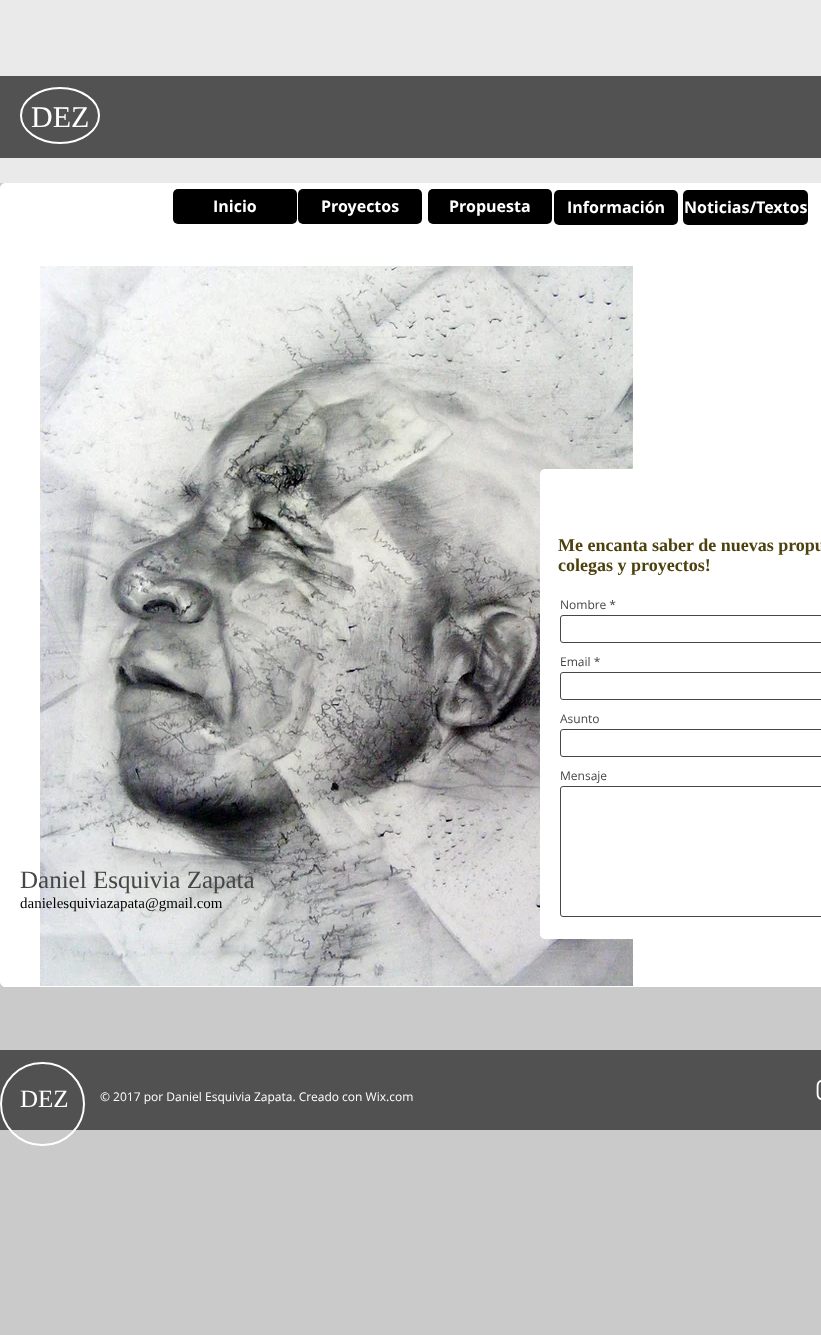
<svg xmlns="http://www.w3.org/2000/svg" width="821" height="1335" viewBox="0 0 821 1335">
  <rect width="100%" height="100%" fill="#cacaca"/>
  <path d="M0 0h821v183H0z" fill="#eaeaea"/>
  <path d="M0 76h821v82H0z" fill="#525252"/>
  <path d="M60 88C81.5 88 99 100.5 99 115.5C99 130.5 81.5 143 60 143C38.5 143 21 130.5 21 115.5C21 100.5 38.5 88 60 88Z" fill="none" stroke="#fff" stroke-width="2"/>
  <rect x="0.5" y="183.5" width="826" height="803" rx="4.5" fill="#fff" stroke="#fff"/>
  <rect x="173" y="189" width="124" height="35" rx="5" fill="#000"/>
  <rect x="298" y="189" width="124" height="35" rx="5" fill="#000"/>
  <rect x="428" y="189" width="124" height="35" rx="5" fill="#000"/>
  <rect x="554" y="190" width="124" height="35" rx="5" fill="#000"/>
  <rect x="683" y="190" width="125" height="35" rx="5" fill="#000"/>
  <image x="40" y="266" width="593" height="720" href="img/1.png"/>
  <rect x="540" y="469" width="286" height="470" rx="5" fill="#fff"/>
  <rect x="560.5" y="615.5" width="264" height="27" rx="2.5" fill="none" stroke="#464646"/>
  <rect x="560.5" y="672.5" width="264" height="27" rx="2.5" fill="none" stroke="#464646"/>
  <rect x="560.5" y="729.5" width="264" height="27" rx="2.5" fill="none" stroke="#464646"/>
  <rect x="560.5" y="786.5" width="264" height="130" rx="2.5" fill="none" stroke="#464646"/>
  <path d="M0 1050h821v80H0z" fill="#515151"/>
  <rect x="1" y="1063" width="83" height="82" rx="41" fill="none" stroke="#fff" stroke-width="2"/>
  <image x="816" y="1079" width="5" height="21" href="img/2.png"/>
  <text x="31" y="127" font-family="Liberation Serif" font-size="30" fill="#fff">DEZ</text>
  <g font-family="Open Sans" font-size="16" font-weight="bold" fill="#fff">
    <text x="213" y="212">Inicio</text>
    <text x="321" y="212">Proyectos</text>
    <text x="449" y="212">Propuesta</text>
    <text x="567" y="213">Información</text>
    <text x="684" y="213">Noticias/Textos</text>
  </g>
  <g font-family="Liberation Serif" font-size="18" font-weight="bold" fill="#4d410d">
    <text x="558" y="551">Me encanta saber de nuevas propu</text>
    <text x="558" y="571">colegas y proyectos!</text>
  </g>
  <g font-family="Open Sans" font-size="12" fill="#464646">
    <text x="560" y="609">Nombre *</text>
    <text x="560" y="666">Email *</text>
    <text x="560" y="723">Asunto</text>
    <text x="560" y="780">Mensaje</text>
  </g>
  <text x="20" y="888" font-family="Liberation Serif" font-size="25" fill="#464646">Daniel Esquivia Zapata</text>
  <text x="20" y="908" font-family="Liberation Serif" font-size="15" fill="#000">danielesquiviazapata@gmail.com</text>
  <text x="20" y="1107" font-family="Liberation Serif" font-size="25" fill="#fff">DEZ</text>
  <text x="100" y="1101" font-family="Open Sans" font-size="12" fill="#fff">© 2017 por Daniel Esquivia Zapata. Creado con Wix.com</text>
</svg>
